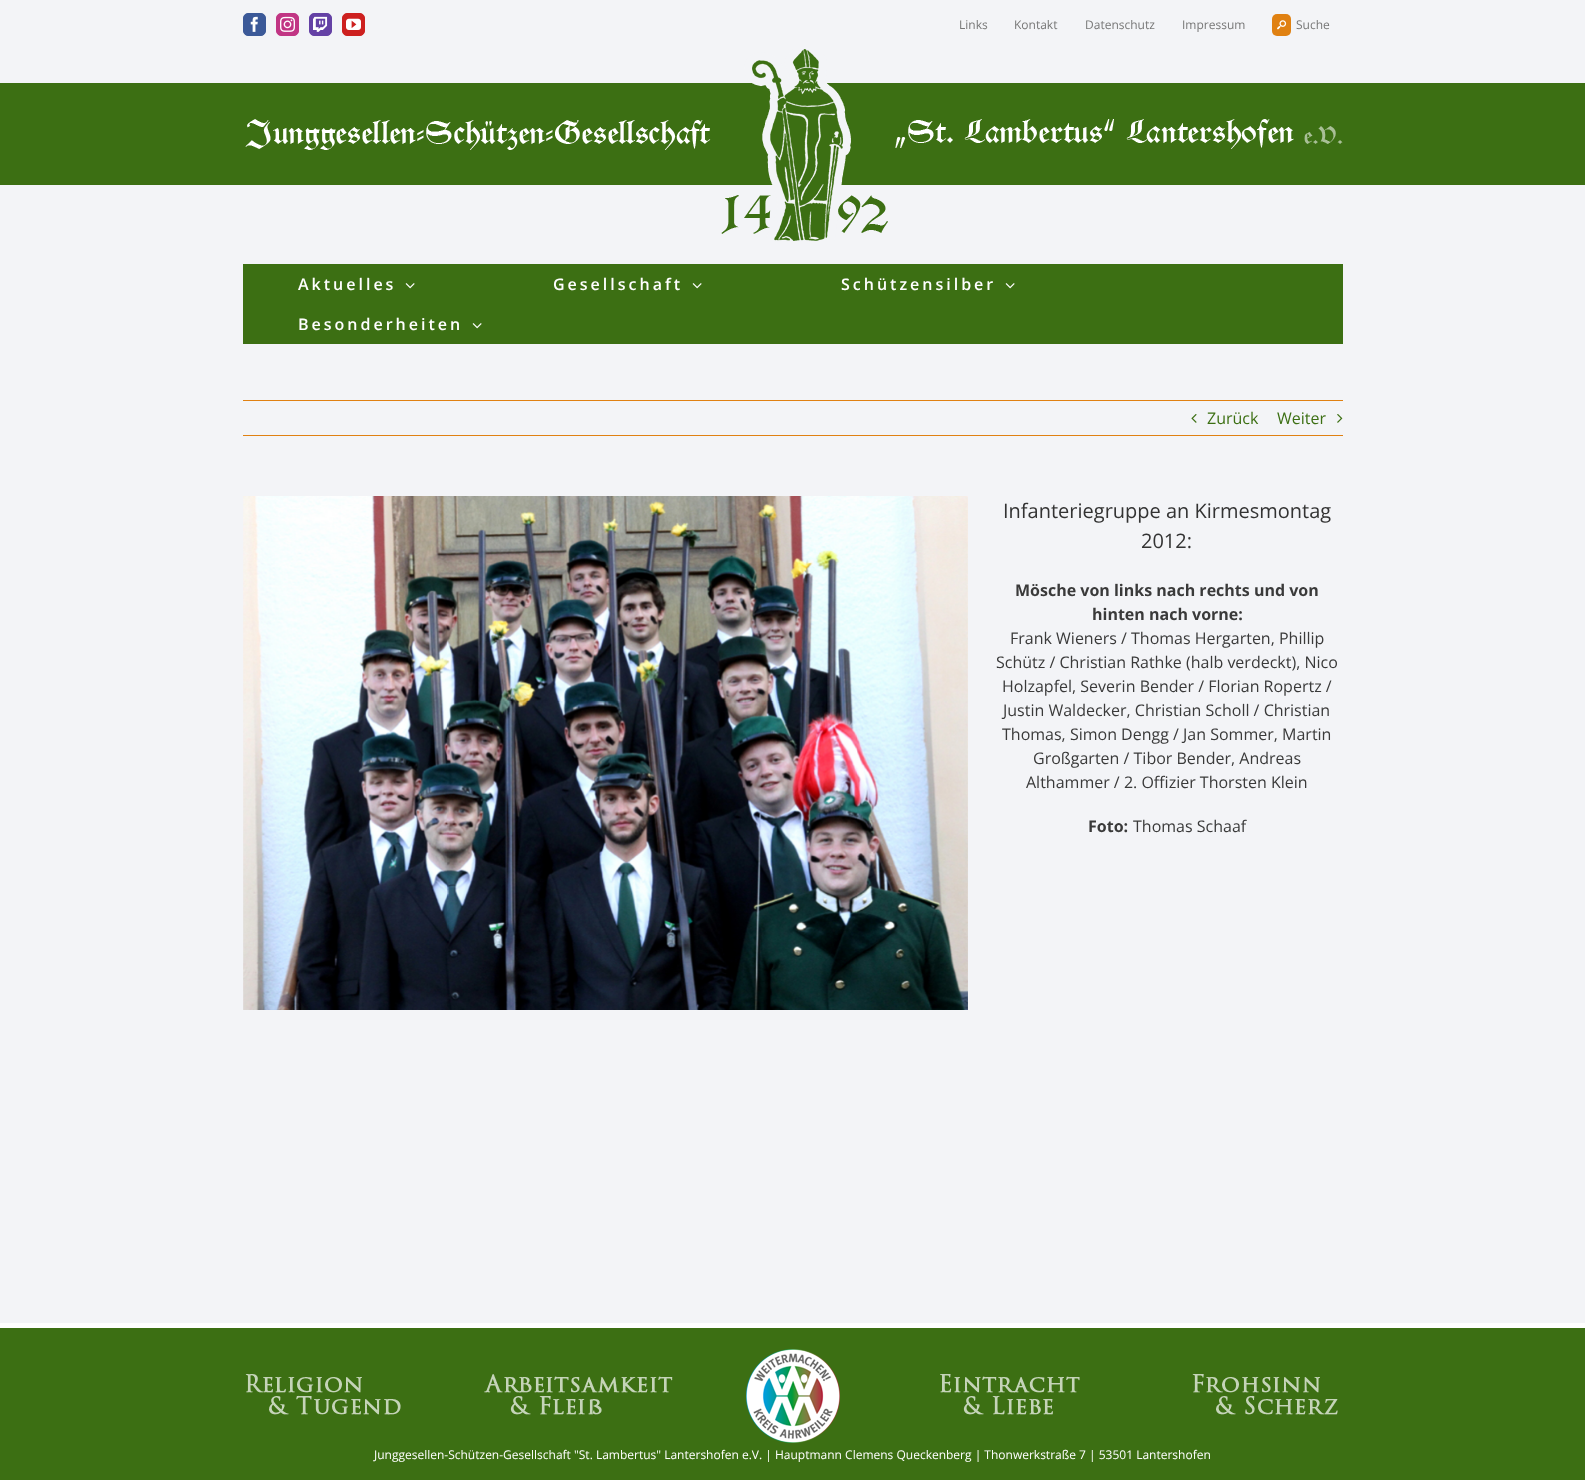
<svg xmlns="http://www.w3.org/2000/svg" width="1585" height="1480" viewBox="0 0 1585 1480">
  <rect width="100%" height="100%" fill="#f3f4f7"/>
  <rect x="243.5" y="13.5" width="22" height="22" rx="4.5" fill="#3b5998" stroke="#3b5998"/>
  <image x="250" y="16" width="8" height="16" href="img/1.png"/>
  <rect x="276.5" y="13.5" width="22" height="22" rx="4.5" fill="#c13584" stroke="#c13584"/>
  <image x="280" y="16" width="15" height="16" href="img/2.png"/>
  <rect x="309.5" y="13.5" width="22" height="22" rx="4.5" fill="#6441a5" stroke="#6441a5"/>
  <image x="313" y="16" width="15" height="16" href="img/3.png"/>
  <rect x="342.5" y="13.5" width="22" height="22" rx="4.5" fill="#cd201f" stroke="#cd201f"/>
  <image x="346" y="18" width="15" height="12" href="img/4.png"/>
  <rect x="1272" y="14" width="19" height="22" rx="5" fill="#e08112"/>
  <image x="1277" y="20" width="10" height="10" href="img/5.png"/>
  <path d="M0 83h1585v102H0z" fill="#3c6f13"/>
  <image x="245" y="49" width="1098" height="192" href="img/6.png"/>
  <path d="M243 264h1100v80H243z" fill="#3c6f13"/>
  <image x="405" y="283" width="10" height="6" href="img/7.png"/>
  <image x="692" y="283" width="10" height="6" href="img/7.png"/>
  <image x="1005" y="283" width="10" height="6" href="img/7.png"/>
  <image x="472" y="323" width="10" height="6" href="img/7.png"/>
  <path d="M243 400h1100v1H243z" fill="#e08112"/>
  <path d="M243 435h1100v1H243z" fill="#e08112"/>
  <image x="1191" y="414" width="6" height="9" href="img/8.png"/>
  <image x="1337" y="414" width="6" height="9" href="img/9.png"/>
  <image x="243" y="496" width="725" height="514" href="img/10.png"/>
  <path d="M0 1328h1585v152H0z" fill="#3c6f13"/>
  <path d="M0 1323h1585v5H0z" fill="#fff"/>
  <image x="245" y="1349" width="1093" height="94" href="img/11.png"/>
  <g font-family="Open Sans" font-size="12" fill="#777">
    <text x="959" y="29">Links</text>
    <text x="1014" y="29">Kontakt</text>
    <text x="1085" y="29">Datenschutz</text>
    <text x="1182" y="29">Impressum</text>
    <text x="1296" y="29">Suche</text>
  </g>
  <g font-family="Open Sans" font-size="16" font-weight="600" letter-spacing="3" fill="#fff">
    <text x="298" y="290">Aktuelles</text>
    <text x="553" y="290">Gesellschaft</text>
    <text x="841" y="290">Schützensilber</text>
    <text x="298" y="330">Besonderheiten</text>
  </g>
  <g font-family="Open Sans" font-size="16" fill="#3c6f13">
    <text x="1207" y="424">Zurück</text>
    <text x="1277" y="424">Weiter</text>
  </g>
  <g font-family="Open Sans" font-size="20" fill="#333">
    <text x="1003" y="518">Infanteriegruppe an Kirmesmontag</text>
    <text x="1141" y="548">2012:</text>
  </g>
  <g font-family="Open Sans" font-size="16" font-weight="bold" fill="#3a3a3a">
    <text x="1015" y="596">Mösche von links nach rechts und von</text>
    <text x="1092" y="620">hinten nach vorne:</text>
  </g>
  <g font-family="Open Sans" font-size="16" fill="#3a3a3a">
    <text x="1010" y="644">Frank Wieners / Thomas Hergarten, Phillip</text>
    <text x="996" y="668">Schütz / Christian Rathke (halb verdeckt), Nico</text>
    <text x="1002" y="692">Holzapfel, Severin Bender / Florian Ropertz /</text>
    <text x="1003" y="716">Justin Waldecker, Christian Scholl / Christian</text>
    <text x="1002" y="740">Thomas, Simon Dengg / Jan Sommer, Martin</text>
    <text x="1033" y="764">Großgarten / Tibor Bender, Andreas</text>
    <text x="1026" y="788">Althammer / 2. Offizier Thorsten Klein</text>
  </g>
  <text x="1088" y="832" font-family="Open Sans" font-size="16" font-weight="bold" fill="#3a3a3a">Foto:</text>
  <text x="1133" y="832" font-family="Open Sans" font-size="16" fill="#3a3a3a">Thomas Schaaf</text>
  <text x="374" y="1459" font-family="Open Sans" font-size="12" fill="#fff">Junggesellen-Schützen-Gesellschaft "St. Lambertus" Lantershofen e.V. | Hauptmann Clemens Queckenberg | Thonwerkstraße 7 | 53501 Lantershofen</text>
</svg>
